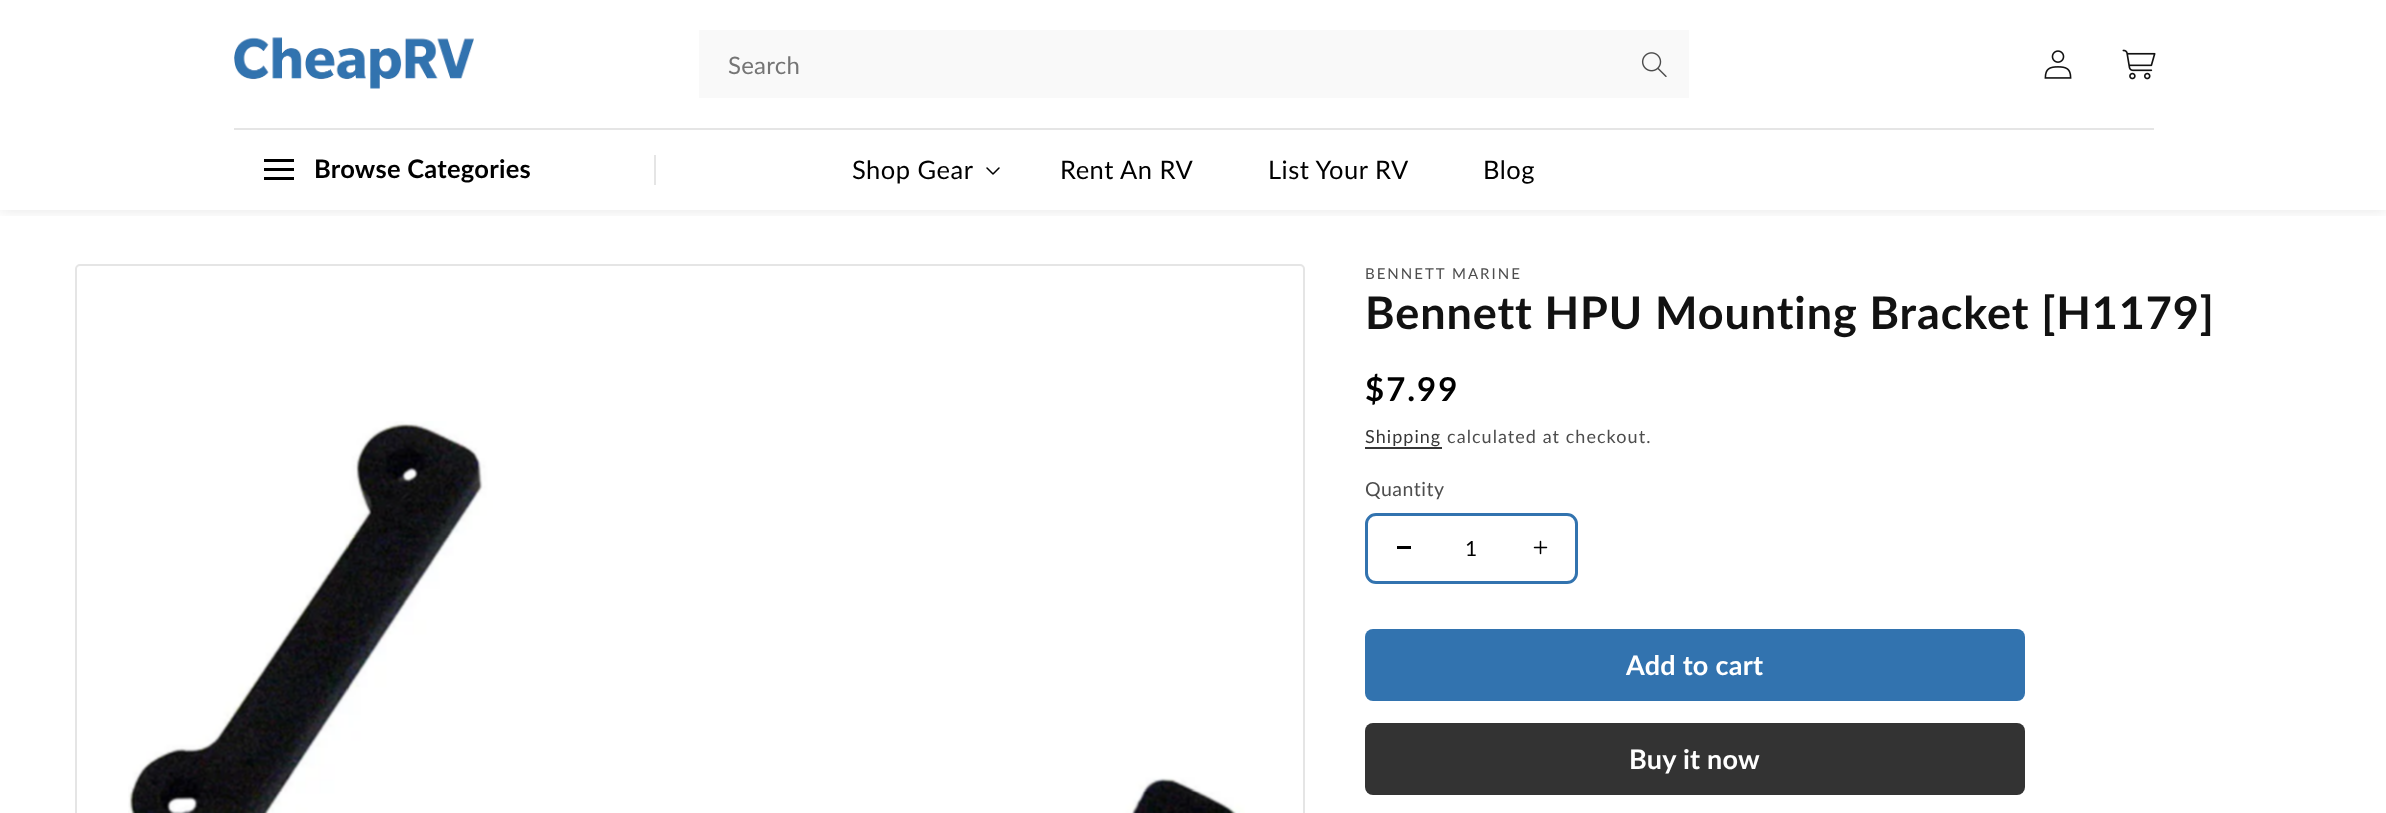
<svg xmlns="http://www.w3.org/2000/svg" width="2386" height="813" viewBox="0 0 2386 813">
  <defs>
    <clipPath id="clip1"><path d="M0 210h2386v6H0z"/></clipPath>
  </defs>
  <rect width="100%" height="100%" fill="#fff"/>
  <g clip-path="url(#clip1)">
    <path d="M0 0h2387v210H0z" fill="#0000001a" filter="blur(7.5px)"/>
  </g>
  <image x="234" y="37" width="240" height="52" href="img/1.png"/>
  <path d="M699 30h990v68H699z" fill="#f9f9f9"/>
  <image x="1641" y="52" width="26" height="25" href="img/2.png"/>
  <image x="2044" y="50" width="28" height="29" href="img/3.png"/>
  <image x="2122" y="49" width="34" height="31" href="img/4.png"/>
  <path d="M234 128h1920v2H234z" fill="#e5e5e5"/>
  <path d="M264 159h30v3H264z" fill="#000"/>
  <path d="M264 168h30v3H264z" fill="#000"/>
  <path d="M264 177h30v3H264z" fill="#000"/>
  <path d="M654 155h2v30H654z" fill="#e5e5e5"/>
  <image x="986" y="167" width="14" height="8" href="img/5.png"/>
  <rect x="76" y="265" width="1228" height="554" rx="4" fill="none" stroke="#e5e5e5" stroke-width="2"/>
  <image x="128" y="421" width="1117" height="392" href="img/6.png"/>
  <path d="M1365 447h77v2H1365z" fill="#363636"/>
  <rect x="1366.5" y="514.5" width="210" height="68" rx="9.5" fill="none" stroke="#3273af" stroke-width="3"/>
  <path d="M1397 546h14v3H1397z" fill="#000"/>
  <image x="1533" y="540" width="15" height="15" href="img/7.png"/>
  <rect x="1365" y="629" width="660" height="72" rx="8" fill="#3273af"/>
  <rect x="1365" y="723" width="660" height="72" rx="8" fill="#333"/>
  <text x="728" y="74" font-family="Lato" font-size="24" letter-spacing="0.25" fill="#757575">Search</text>
  <text x="314" y="178" font-family="Lato" font-size="25.5" font-weight="bold" letter-spacing="0.25" fill="#000">Browse Categories</text>
  <g font-family="Lato" font-size="25.5" letter-spacing="0.5" fill="#000">
    <text x="852" y="179">Shop Gear</text>
    <text x="1060" y="179">Rent An RV</text>
    <text x="1268" y="179">List Your RV</text>
    <text x="1483" y="179">Blog</text>
  </g>
  <text x="1365" y="279" font-family="Lato" font-size="15" letter-spacing="2" fill="#4d4d4d">BENNETT MARINE</text>
  <text x="1365" y="329" font-family="Lato" font-size="45" font-weight="bold" letter-spacing="0.9" fill="#121212">Bennett HPU Mounting Bracket [H1179]</text>
  <text x="1365" y="401" font-family="Lato" font-size="33" font-weight="bold" letter-spacing="2" fill="#000">$7.99</text>
  <text x="1365" y="443" font-family="Lato" font-size="18" letter-spacing="1.05" fill="#363636">Shipping</text>
  <text x="1447" y="443" font-family="Lato" font-size="18" letter-spacing="1.05" fill="#4d4d4d">calculated at checkout.</text>
  <text x="1365" y="496" font-family="Lato" font-size="19.5" letter-spacing="0.5" fill="#4d4d4d">Quantity</text>
  <text x="1465" y="556" font-family="Lato" font-size="21" letter-spacing="0.25" fill="#000">1</text>
  <g font-family="Lato" font-size="27" font-weight="bold" letter-spacing="0.25" fill="#fff">
    <text x="1626" y="675">Add to cart</text>
    <text x="1629" y="769">Buy it now</text>
  </g>
</svg>
